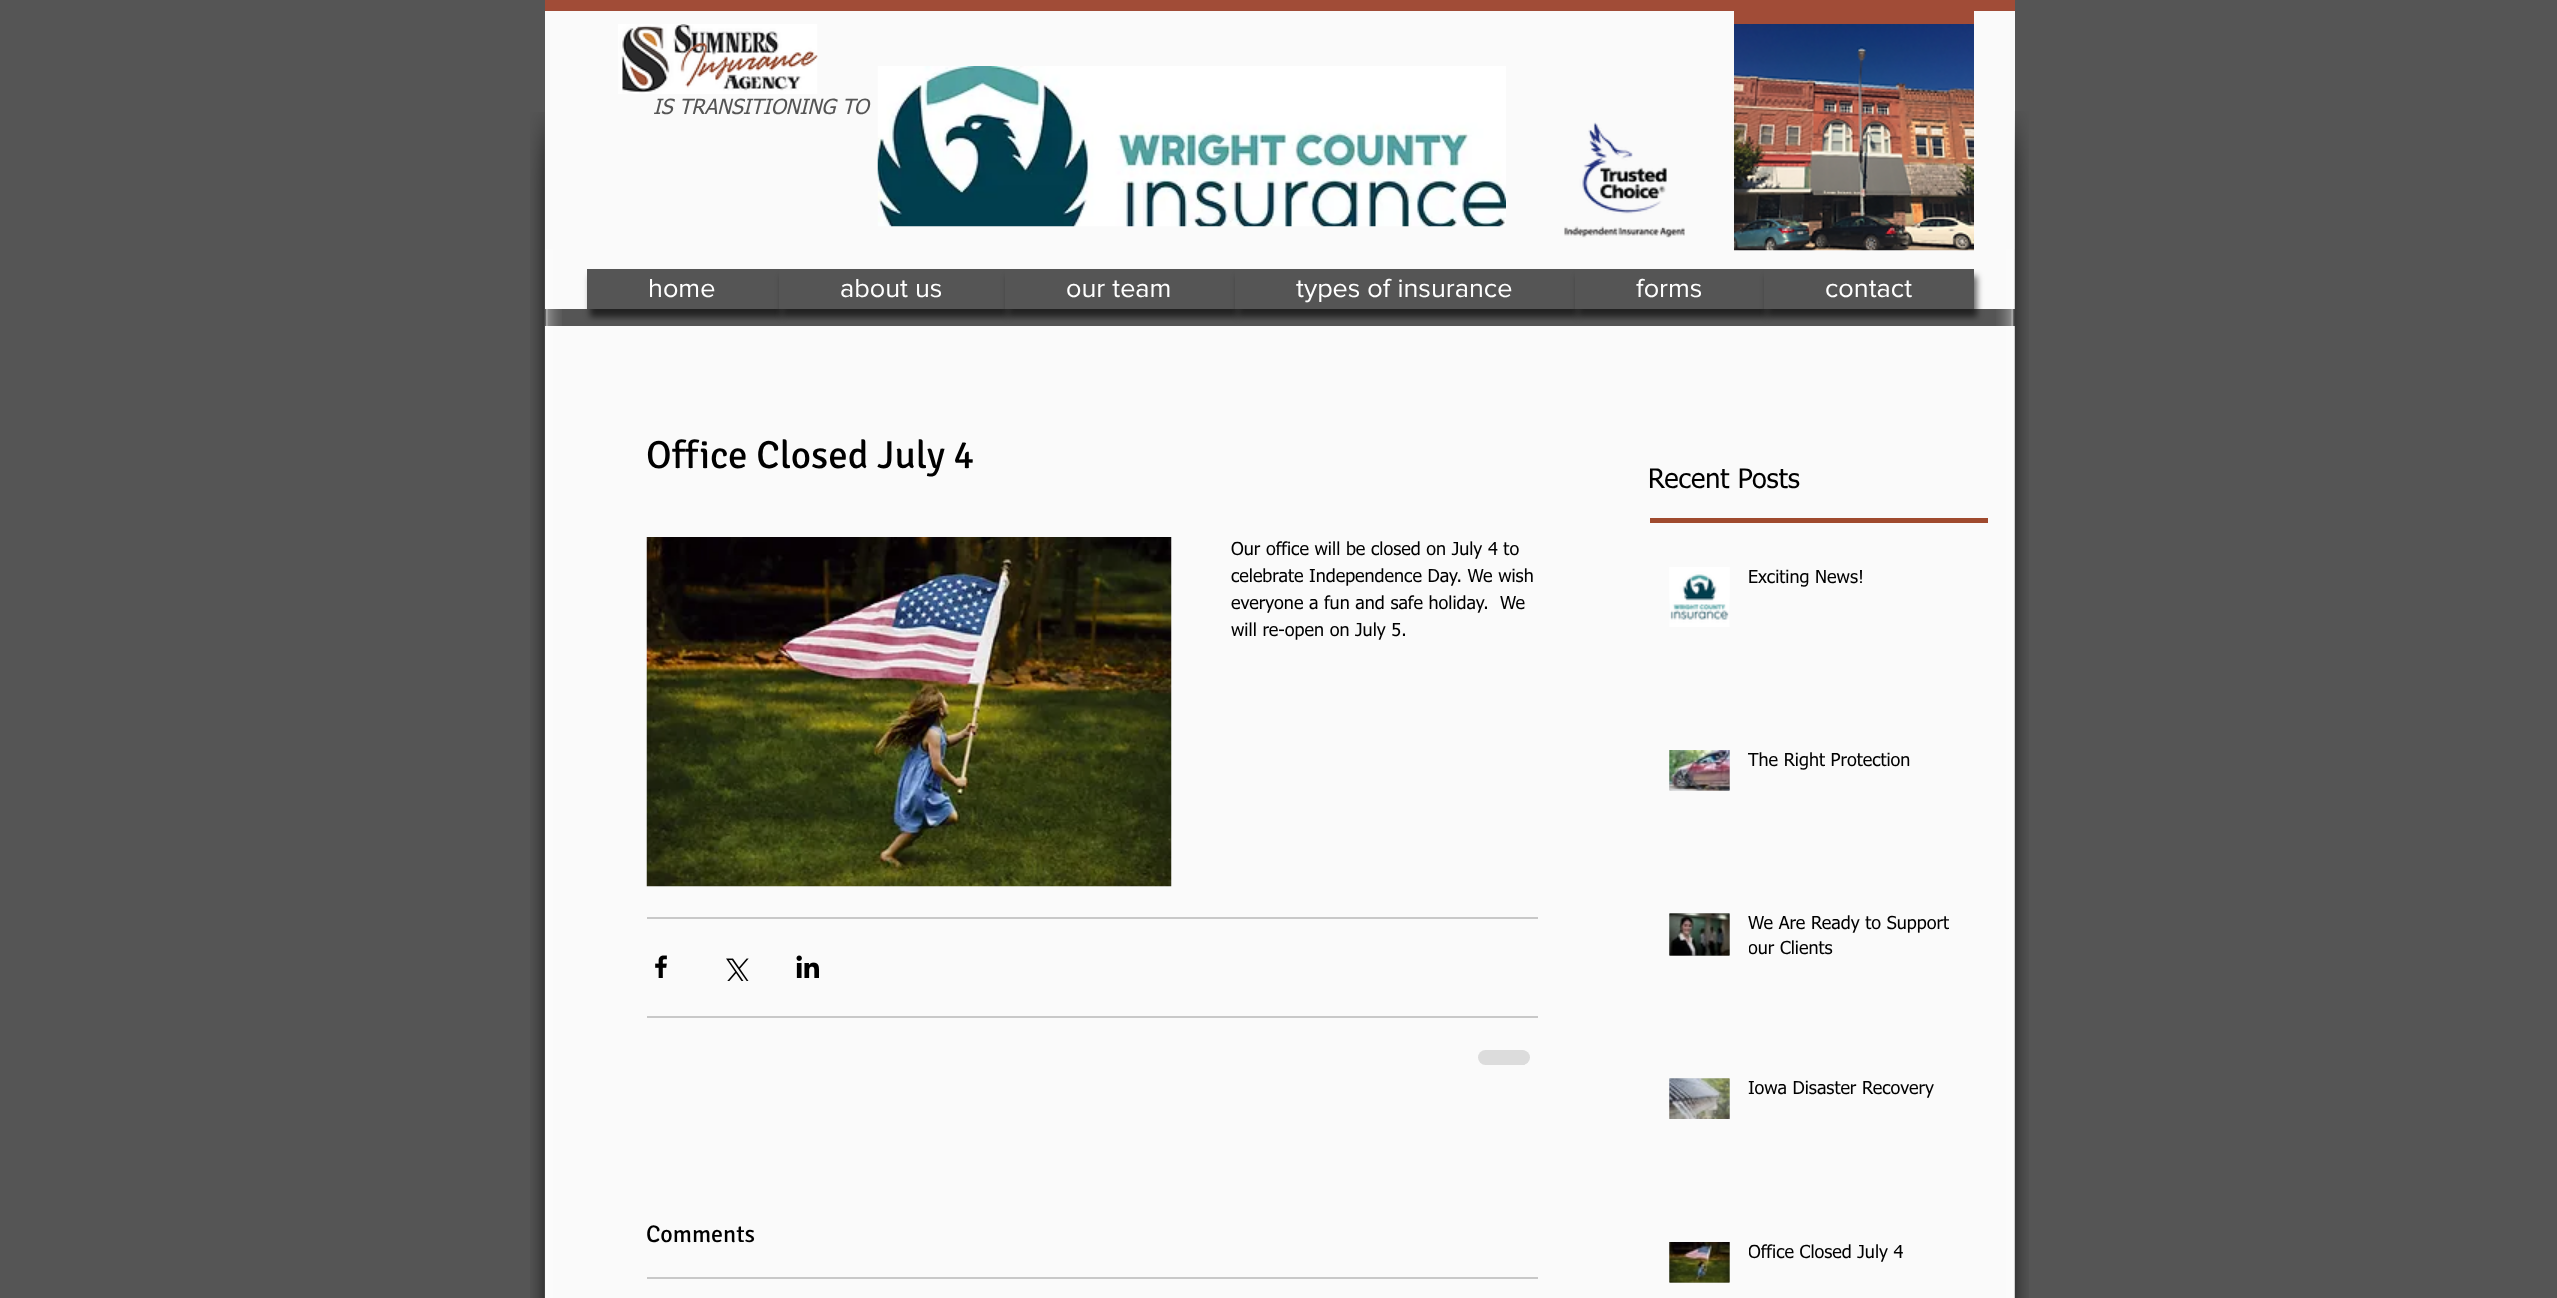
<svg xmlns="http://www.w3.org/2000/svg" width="2557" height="1298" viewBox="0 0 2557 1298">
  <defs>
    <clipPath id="clip1"><path d="M1749 912h221v51H1749z"/></clipPath>
    <clipPath id="clip2"><path d="M1749 1241h221v25H1749z"/></clipPath>
  </defs>
  <rect width="100%" height="100%" fill="#555"/>
  <path d="M545 0h1470v11H545z" fill="#a14c37"/>
  <path d="M545 11h1470v298H545z" fill="#fafafa"/>
  <path d="M1734 11h240v13H1734z" fill="#a14c37"/>
  <image x="618" y="24" width="200" height="70" href="img/1.png"/>
  <image x="877" y="66" width="629" height="161" href="img/2.png"/>
  <image x="1734" y="24" width="240" height="227" href="img/3.png"/>
  <image x="1564" y="122" width="121" height="116" href="img/4.png"/>
  <path d="M590 276h192v41H590z" fill="#00000099" filter="blur(3px)"/>
  <path d="M587 269h192v40H587z" fill="#555"/>
  <path d="M782 276h226v41H782z" fill="#00000099" filter="blur(3px)"/>
  <path d="M779 269h226v40H779z" fill="#555"/>
  <path d="M1008 276h230v41H1008z" fill="#00000099" filter="blur(3px)"/>
  <path d="M1005 269h230v40H1005z" fill="#555"/>
  <path d="M1238 276h340v41H1238z" fill="#00000099" filter="blur(3px)"/>
  <path d="M1235 269h340v40H1235z" fill="#555"/>
  <path d="M1578 276h189v41H1578z" fill="#00000099" filter="blur(3px)"/>
  <path d="M1575 269h189v40H1575z" fill="#555"/>
  <path d="M1767 276h210v41H1767z" fill="#00000099" filter="blur(3px)"/>
  <path d="M1764 269h210v40H1764z" fill="#555"/>
  <image x="530" y="112" width="15" height="137" href="img/5.png"/>
  <path d="M545 326h1470v972H545z" fill="#fafafa"/>
  <image x="530" y="249" width="32" height="1049" href="img/6.png"/>
  <image x="2014" y="111" width="15" height="138" href="img/7.png"/>
  <image x="1996" y="249" width="33" height="1049" href="img/8.png"/>
  <image x="646" y="537" width="526" height="350" href="img/9.png"/>
  <path d="M647 917h891v2H647z" fill="#c8c8c8"/>
  <image x="655" y="955" width="12" height="23" href="img/10.png"/>
  <image x="726" y="958" width="23" height="23" href="img/11.png"/>
  <image x="796" y="955" width="23" height="23" href="img/12.png"/>
  <path d="M647 1016h891v2H647z" fill="#c8c8c8"/>
  <rect x="1478" y="1050" width="52" height="15" rx="7.5" fill="#dcdcdc"/>
  <path d="M647 1277h891v2H647z" fill="#c8c8c8"/>
  <path d="M1650 518h338v5H1650z" fill="#9f4a2e"/>
  <image x="1669" y="567" width="61" height="59" href="img/13.png"/>
  <image x="1669" y="567" width="61" height="60" href="img/14.png"/>
  <image x="1669" y="750" width="61" height="41" href="img/15.png"/>
  <image x="1669" y="750" width="61" height="41" href="img/16.png"/>
  <image x="1669" y="913" width="61" height="43" href="img/17.png"/>
  <image x="1669" y="913" width="61" height="43" href="img/18.png"/>
  <image x="1669" y="1078" width="61" height="41" href="img/19.png"/>
  <image x="1669" y="1078" width="61" height="41" href="img/20.png"/>
  <image x="1669" y="1242" width="61" height="41" href="img/21.png"/>
  <image x="1669" y="1242" width="61" height="41" href="img/22.png"/>
  <text x="653" y="114" font-family="tahoma" font-size="21" font-style="italic" fill="#555">IS TRANSITIONING TO</text>
  <g font-family="'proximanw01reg'" font-size="27" fill="#fff">
    <text x="648" y="297">home</text>
    <text x="840" y="297">about us</text>
    <text x="1066" y="297">our team</text>
    <text x="1296" y="297">types of insurance</text>
    <text x="1636" y="297">forms</text>
    <text x="1825" y="297">contact</text>
  </g>
  <text x="646" y="468" font-family="Signika" font-size="39" fill="#000">Office Closed July 4</text>
  <g font-family="tahoma" font-size="18" fill="#000">
    <text x="1231" y="555">Our office will be closed on July 4 to</text>
    <text x="1231" y="582">celebrate Independence Day. We wish</text>
    <text x="1231" y="609" xml:space="preserve">everyone a fun and safe holiday.  We</text>
    <text x="1231" y="636">will re-open on July 5.</text>
  </g>
  <text x="646" y="1242" font-family="Signika" font-size="24" fill="#000">Comments</text>
  <text x="1648" y="488" font-family="tahoma" font-size="27" fill="#000">Recent Posts</text>
  <g font-family="tahoma" font-size="18" fill="#000">
    <text x="1748" y="583">Exciting News!</text>
    <text x="1748" y="766">The Right Protection</text>
    <text x="1748" y="929">We Are Ready to Support</text>
  </g>
  <g clip-path="url(#clip1)">
    <text x="1748" y="954" font-family="tahoma" font-size="18" fill="#000">our Clients</text>
  </g>
  <text x="1748" y="1094" font-family="tahoma" font-size="18" fill="#000">Iowa Disaster Recovery</text>
  <g clip-path="url(#clip2)">
    <text x="1748" y="1258" font-family="tahoma" font-size="18" fill="#000">Office Closed July 4</text>
  </g>
</svg>
